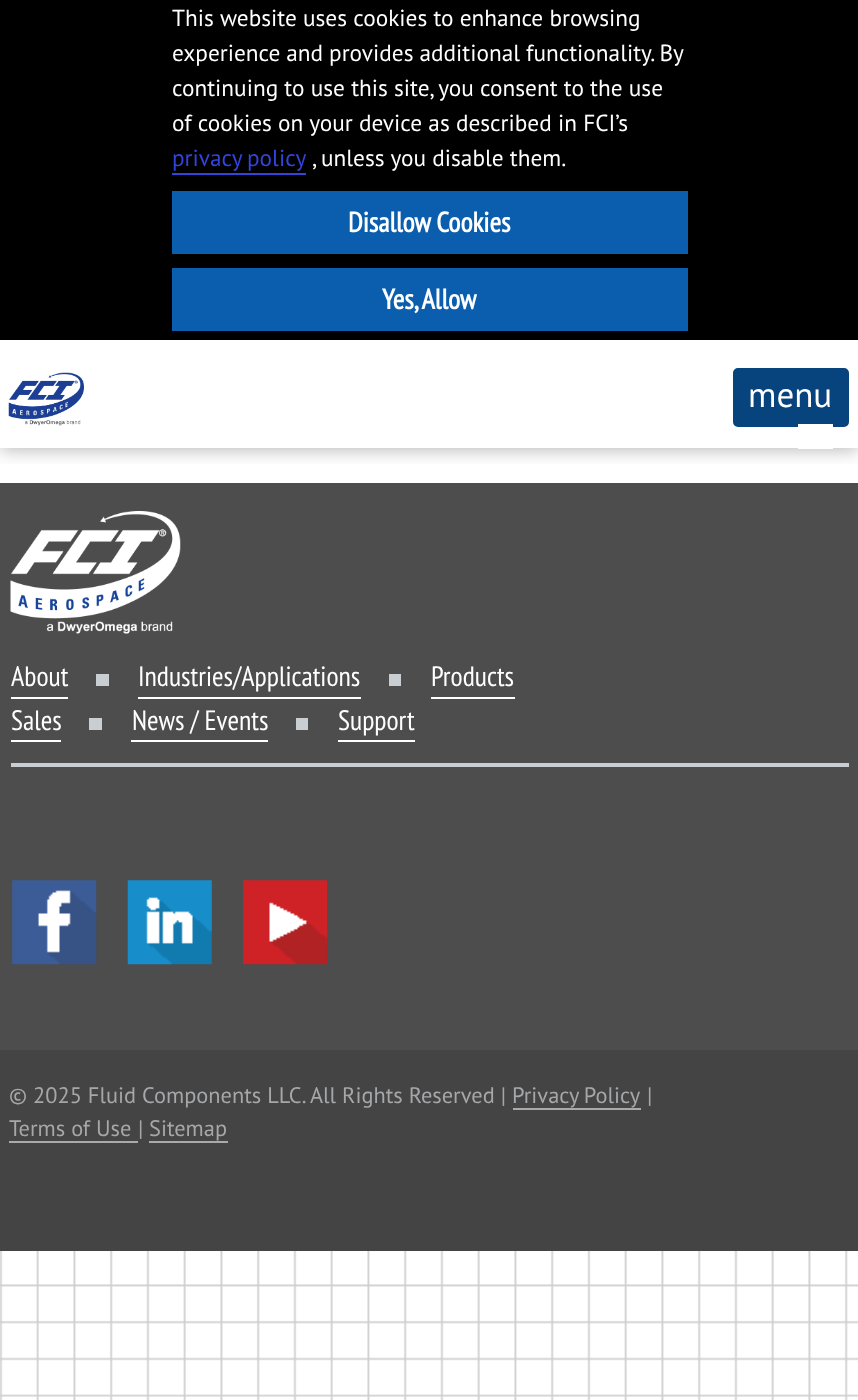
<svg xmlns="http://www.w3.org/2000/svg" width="858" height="1400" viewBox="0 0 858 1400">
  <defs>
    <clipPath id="clip1"><path d="M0 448h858v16H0z"/></clipPath>
  </defs>
  <rect width="100%" height="100%" fill="#fff"/>
  <image x="0" y="1251" width="858" height="149" href="img/1.png"/>
  <g clip-path="url(#clip1)">
    <path d="M0 2h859v448H0z" fill="#1414144d" filter="blur(9px)"/>
  </g>
  <path d="M0 0h858v340H0z" fill="#000"/>
  <path d="M172 173h134v2H172z" fill="#34d"/>
  <path d="M172 191h516v63H172z" fill="#0a5ead"/>
  <path d="M172 268h516v63H172z" fill="#0a5ead"/>
  <image x="8" y="372" width="76" height="54" href="img/2.png"/>
  <rect x="734" y="369" width="114" height="57" rx="4" fill="#07447d" stroke="#07447d" stroke-width="2"/>
  <path d="M798 424h35v3H798z" fill="#fff"/>
  <path d="M798 448h35v1H798z" fill="#fff"/>
  <path d="M0 483h858v567H0z" fill="#4d4d4d"/>
  <path d="M11 763h838v4H11z" fill="#c9ced2"/>
  <image x="10" y="511" width="171" height="123" href="img/3.png"/>
  <path d="M11 697h57v2H11z" fill="#fff"/>
  <path d="M96 674h13v12H96z" fill="#c9ced2"/>
  <path d="M138 697h223v2H138z" fill="#fff"/>
  <path d="M389 674h12v12H389z" fill="#c9ced2"/>
  <path d="M431 697h84v2H431z" fill="#fff"/>
  <path d="M11 740h50v2H11z" fill="#fff"/>
  <path d="M89 718h13v12H89z" fill="#c9ced2"/>
  <path d="M131 740h137v2H131z" fill="#fff"/>
  <path d="M296 718h12v12H296z" fill="#c9ced2"/>
  <path d="M338 740h77v2H338z" fill="#fff"/>
  <image x="12" y="880" width="85" height="85" href="img/4.png"/>
  <image x="127" y="880" width="85" height="85" href="img/5.png"/>
  <image x="243" y="880" width="85" height="85" href="img/6.png"/>
  <path d="M0 1050h858v201H0z" fill="#454444"/>
  <path d="M513 1108h128v2H513z" fill="#aaa"/>
  <path d="M9 1141h129v2H9z" fill="#aaa"/>
  <path d="M149 1141h79v2H149z" fill="#aaa"/>
  <g font-family="PT Sans" font-size="23.3" fill="#fff">
    <text x="172" y="26">This website uses cookies to enhance browsing</text>
    <text x="172" y="61" word-spacing="-0.25">experience and provides additional functionality. By</text>
    <text x="172" y="96">continuing to use this site, you consent to the use</text>
    <text x="172" y="131">of cookies on your device as described in FCI’s</text>
  </g>
  <text x="172" y="166" word-spacing="-1" font-family="PT Sans" font-size="23.3" fill="#34d">privacy policy</text>
  <text x="312" y="166" font-family="PT Sans" font-size="23.3" fill="#fff">, unless you disable them.</text>
  <g font-family="PT Sans Narrow" font-size="28" font-weight="bold" fill="#fff">
    <text x="348" y="232">Disallow Cookies</text>
    <text x="382" y="309">Yes, Allow</text>
  </g>
  <text x="748" y="407" font-family="PT Sans" font-size="35" fill="#fff">menu</text>
  <g font-family="PT Sans Narrow" font-size="28" fill="#fff">
    <text x="11" y="686">About</text>
    <text x="138" y="686">Industries/Applications</text>
    <text x="431" y="686">Products</text>
    <text x="11" y="730">Sales</text>
    <text x="132" y="730">News / Events</text>
    <text x="338" y="730">Support</text>
  </g>
  <g font-family="PT Sans" font-size="22.4" fill="#a6a7a9">
    <text x="9" y="1103">© 2025 Fluid Components LLC. All Rights Reserved |</text>
    <text x="512" y="1103" word-spacing="-1">Privacy Policy</text>
    <text x="647" y="1103">|</text>
    <text x="9" y="1136">Terms of Use</text>
    <text x="138" y="1136">|</text>
    <text x="149" y="1136">Sitemap</text>
  </g>
</svg>
